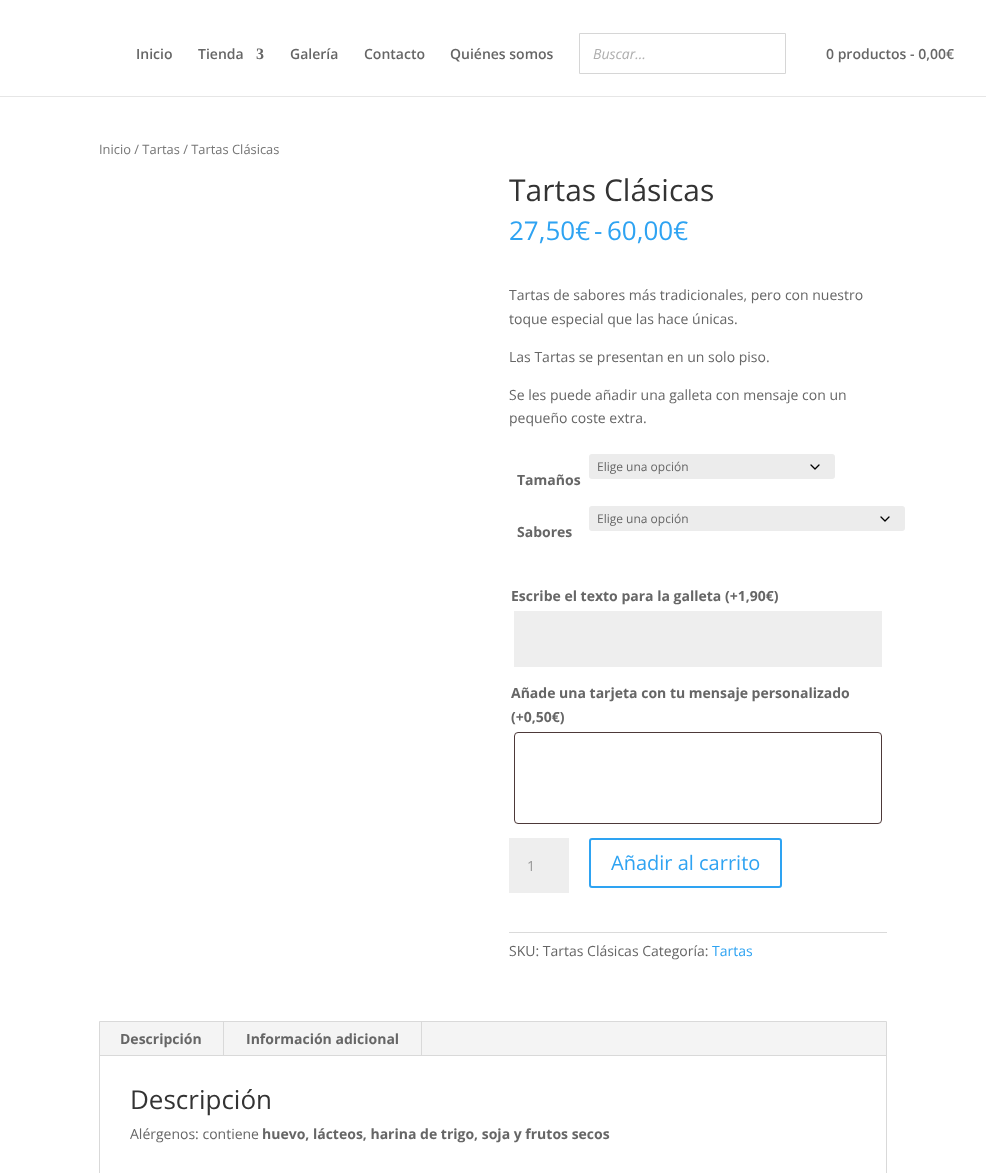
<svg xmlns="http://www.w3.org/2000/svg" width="986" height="1173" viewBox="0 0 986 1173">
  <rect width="100%" height="100%" fill="#fff"/>
  <path d="M0 96h986v1H0z" fill="#e6e6e6"/>
  <path d="M579.5 33.5h206v40H579.5z" fill="none" stroke="#d6d6d6"/>
  <rect x="589" y="454" width="246" height="25" rx="3" fill="#ececec"/>
  <path d="M811 465L815 469L819 465" fill="none" stroke="#000" stroke-width="1.3" stroke-linecap="round" stroke-linejoin="round"/>
  <rect x="589" y="506" width="316" height="25" rx="3" fill="#ececec"/>
  <path d="M881 517L885 521L889 517" fill="none" stroke="#000" stroke-width="1.3" stroke-linecap="round" stroke-linejoin="round"/>
  <path d="M514 611h368v56H514z" fill="#eee"/>
  <rect x="514.5" y="732.5" width="367" height="91" rx="3.5" fill="none" stroke="#4d3939"/>
  <path d="M509 838h60v55H509z" fill="#eee"/>
  <rect x="590" y="839" width="191" height="48" rx="2" fill="none" stroke="#2ea3f2" stroke-width="2"/>
  <path d="M509 932h378v1H509z" fill="#dadada"/>
  <path d="M99.5 1021.5h787v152H99.5z" fill="none" stroke="#d9d9d9"/>
  <path d="M100 1022h786v33H100z" fill="#f4f4f4"/>
  <path d="M223 1022h1v34H223z" fill="#d9d9d9"/>
  <path d="M421 1022h1v34H421z" fill="#d9d9d9"/>
  <path d="M100 1055h786v1H100z" fill="#d9d9d9"/>
  <g font-family="Open Sans" font-size="14" font-weight="600" fill="#666">
    <text x="136" y="59">Inicio</text>
    <text x="198" y="59">Tienda</text>
  </g>
  <text x="256" y="59" font-family="Liberation Serif" font-size="16" font-weight="bold" fill="#666">3</text>
  <g font-family="Open Sans" font-size="14" font-weight="600" fill="#666">
    <text x="290" y="59">Galería</text>
    <text x="364" y="59">Contacto</text>
    <text x="450" y="59">Quiénes somos</text>
  </g>
  <text x="593" y="59" font-family="Open Sans" font-size="14" font-style="italic" fill="#aeaeae">Buscar…</text>
  <text x="826" y="59" font-family="Open Sans" font-size="14" font-weight="600" fill="#666">0 productos - 0,00€</text>
  <text x="99" y="154" font-family="Open Sans" font-size="12.9" fill="#767676">Inicio / Tartas / Tartas Clásicas</text>
  <text x="509" y="201" font-family="Open Sans" font-size="30" fill="#333">Tartas Clásicas</text>
  <g font-family="Open Sans" font-size="26" fill="#2ea3f2">
    <text x="509" y="240">27,50€</text>
    <text x="594" y="240">-</text>
    <text x="607" y="240">60,00€</text>
  </g>
  <g font-family="Open Sans" font-size="14" fill="#666">
    <text x="509" y="300">Tartas de sabores más tradicionales, pero con nuestro</text>
    <text x="509" y="324">toque especial que las hace únicas.</text>
    <text x="509" y="362">Las Tartas se presentan en un solo piso.</text>
    <text x="509" y="400">Se les puede añadir una galleta con mensaje con un</text>
    <text x="509" y="423">pequeño coste extra.</text>
  </g>
  <text x="597" y="471" font-family="Open Sans" font-size="12" fill="#666">Elige una opción</text>
  <text x="517" y="485" font-family="Open Sans" font-size="14" font-weight="bold" fill="#666">Tamaños</text>
  <text x="597" y="523" font-family="Open Sans" font-size="12" fill="#666">Elige una opción</text>
  <g font-family="Open Sans" font-size="14" font-weight="bold" fill="#666">
    <text x="517" y="537">Sabores</text>
    <text x="511" y="601">Escribe el texto para la galleta (+1,90€)</text>
    <text x="511" y="698">Añade una tarjeta con tu mensaje personalizado</text>
    <text x="511" y="722">(+0,50€)</text>
  </g>
  <text x="527" y="871" font-family="Open Sans" font-size="14" fill="#999">1</text>
  <text x="611" y="870" font-family="Open Sans" font-size="20" fill="#2ea3f2">Añadir al carrito</text>
  <text x="509" y="956" font-family="Open Sans" font-size="14" fill="#666">SKU: Tartas Clásicas Categoría:</text>
  <text x="712" y="956" font-family="Open Sans" font-size="14" fill="#2ea3f2">Tartas</text>
  <g font-family="Open Sans" font-size="14" font-weight="bold" fill="#666">
    <text x="120" y="1044">Descripción</text>
    <text x="246" y="1044">Información adicional</text>
  </g>
  <text x="130" y="1109" font-family="Open Sans" font-size="26" fill="#333">Descripción</text>
  <text x="130" y="1139" font-family="Open Sans" font-size="14" fill="#666">Alérgenos: contiene</text>
  <text x="262" y="1139" font-family="Open Sans" font-size="14" font-weight="bold" fill="#666">huevo, lácteos, harina de trigo, soja y frutos secos</text>
</svg>
